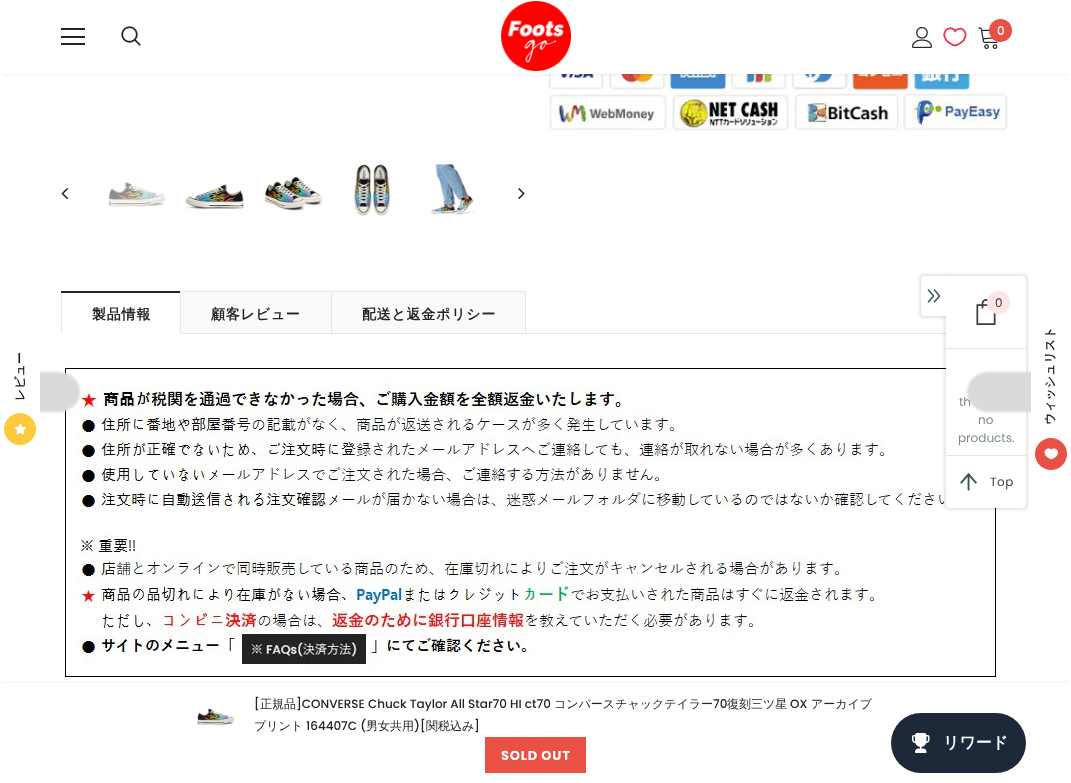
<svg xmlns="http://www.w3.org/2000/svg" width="1071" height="783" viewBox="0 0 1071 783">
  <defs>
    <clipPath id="clip1"><path d="M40 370h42v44H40z"/></clipPath>
    <clipPath id="clip2"><path d="M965 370h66v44H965z"/></clipPath>
  </defs>
  <rect width="100%" height="100%" fill="#fff"/>
  <image x="546" y="74" width="462" height="57" href="img/5.png"/>
  <path d="M3 6h1065v68H3z" fill="#0000001f" filter="blur(1.5px)"/>
  <path d="M1 4h1069v70H1z" fill="#fff"/>
  <path d="M61 28h24v2H61z" fill="#232323"/>
  <path d="M61 36h24v2H61z" fill="#232323"/>
  <path d="M61 43h24v2H61z" fill="#232323"/>
  <image x="121" y="26" width="20" height="20" href="img/1.png"/>
  <image x="501" y="1" width="70" height="70" href="img/2.png"/>
  <image x="912" y="27" width="20" height="21" href="img/3.png"/>
  <path d="M954.5 30L955 31C962.5 23.5 971.5 35.5 960.5 43C959 44 957 45.5 955 45.5C953 45.5 951 44 949.5 43C938 35 948 24 954.5 30Z" fill="none" stroke="#ef3251" stroke-width="1.8"/>
  <image x="978" y="27" width="20" height="22" href="img/4.png"/>
  <circle cx="1000.5" cy="30.5" r="11.5" fill="#e95144"/>
  <image x="61" y="188" width="7" height="12" href="img/6.png"/>
  <image x="108" y="181" width="58" height="26" href="img/7.png"/>
  <image x="185" y="184" width="59" height="26" href="img/8.png"/>
  <image x="264" y="176" width="59" height="35" href="img/9.png"/>
  <image x="354" y="164" width="37" height="52" href="img/10.png"/>
  <image x="431" y="164" width="45" height="51" href="img/11.png"/>
  <image x="518" y="188" width="7" height="12" href="img/12.png"/>
  <path d="M61 333h885v1H61z" fill="#e6e6e6"/>
  <path d="M61 291h1v42H61z" fill="#e6e6e6"/>
  <path d="M61 291h120v2H61z" fill="#232323"/>
  <path d="M62 333h118v1H62z" fill="#fff"/>
  <path d="M181 292h150v41H181z" fill="#fafafa"/>
  <path d="M180 291h346v1H180z" fill="#e6e6e6"/>
  <path d="M180 291h1v42H180z" fill="#e6e6e6"/>
  <path d="M332 292h193v41H332z" fill="#fafafa"/>
  <path d="M525 291h1v42H525z" fill="#e6e6e6"/>
  <path d="M331 291h1v42H331z" fill="#e6e6e6"/>
  <image x="61" y="364" width="935" height="317" href="img/13.png"/>
  <path d="M3 683h1065v94H3z" fill="#0000001a" filter="blur(1.5px)"/>
  <path d="M1 683h1069v96H1z" fill="#fff"/>
  <image x="197" y="708" width="38" height="17" href="img/14.png"/>
  <path d="M485 737h101v36H485z" fill="#e95144"/>
  <rect x="944" y="274" width="84" height="236" rx="5" fill="#0000001a" filter="blur(1.5px)"/>
  <path d="M946 276H1023C1024.5 276 1026 277.5 1026 279V505C1026 506.5 1024.5 508 1023 508H949C947.5 508 946 506.5 946 505Z" fill="#fff"/>
  <rect x="919" y="274" width="30" height="44" rx="5" fill="#0000001a" filter="blur(1.5px)"/>
  <path d="M924 276H947V316H924C922.5 316 921 314.5 921 313V279C921 277.5 922.5 276 924 276Z" fill="#fff"/>
  <image x="927" y="289" width="14" height="14" href="img/15.png"/>
  <path d="M946 276h5v43H946z" fill="#fff"/>
  <path d="M946 348h80v1H946z" fill="#e7e7e7"/>
  <image x="976" y="299" width="20" height="26" href="img/16.png"/>
  <circle cx="998.5" cy="302.5" r="11.5" fill="#ffe5e5"/>
  <path d="M946 455h80v1H946z" fill="#e7e7e7"/>
  <image x="960" y="473" width="17" height="18" href="img/17.png"/>
  <g clip-path="url(#clip1)">
    <rect x="-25" y="372" width="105" height="40" rx="22" fill="#dadada" filter="blur(1px)"/>
  </g>
  <circle cx="20" cy="429" r="16" fill="#fcca3c"/>
  <image x="14" y="423" width="13" height="12" href="img/18.png"/>
  <g clip-path="url(#clip2)">
    <rect x="967" y="372" width="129" height="40" rx="22" fill="#dadada" filter="blur(1px)"/>
  </g>
  <circle cx="1051" cy="454" r="16" fill="#e95144"/>
  <image x="1044" y="448" width="14" height="12" href="img/19.png"/>
  <rect x="891" y="713" width="135" height="60" rx="30" fill="#1d2939"/>
  <image x="912" y="733" width="18" height="20" href="img/20.png"/>
  <text x="997" y="35" font-family="Poppins" font-size="12" font-weight="500" fill="#fff">0</text>
  <g font-family="WenQuanYi Zen Hei" font-size="14" font-weight="bold" letter-spacing="0.75" fill="#232323">
    <text x="92" y="319">製品情報</text>
    <text x="211" y="319">顧客レビュー</text>
    <text x="362" y="319">配送と返金ポリシー</text>
  </g>
  <text x="254" y="708" font-family="Poppins" font-size="12" font-weight="500" fill="#232323">[</text>
  <text x="260" y="708" font-family="WenQuanYi Zen Hei" font-size="12" font-weight="500" fill="#232323">正規品</text>
  <text x="296" y="708" font-family="Poppins" font-size="12" font-weight="500" fill="#232323">]CONVERSE Chuck Taylor All Star70 HI ct70</text>
  <text x="554" y="708" font-family="WenQuanYi Zen Hei" font-size="12" font-weight="500" fill="#232323">コンバースチャックテイラー</text>
  <text x="713" y="708" font-family="Poppins" font-size="12" font-weight="500" fill="#232323">70</text>
  <text x="727" y="708" font-family="WenQuanYi Zen Hei" font-size="12" font-weight="500" fill="#232323">復刻三ツ星</text>
  <text x="790" y="708" font-family="Poppins" font-size="12" font-weight="500" fill="#232323">OX</text>
  <g font-family="WenQuanYi Zen Hei" font-size="12" font-weight="500" fill="#232323">
    <text x="811" y="708">アーカイブ</text>
    <text x="254" y="730">プリント</text>
  </g>
  <text x="306" y="730" font-family="Poppins" font-size="12" font-weight="500" fill="#232323">164407C (</text>
  <text x="366" y="730" font-family="WenQuanYi Zen Hei" font-size="12" font-weight="500" fill="#232323">男女共用</text>
  <text x="414" y="730" font-family="Poppins" font-size="12" font-weight="500" fill="#232323">)[</text>
  <text x="426" y="730" font-family="WenQuanYi Zen Hei" font-size="12" font-weight="500" fill="#232323">関税込み</text>
  <text x="474" y="730" font-family="Poppins" font-size="12" font-weight="500" fill="#232323">]</text>
  <text x="501" y="760" font-family="Poppins" font-size="13" font-weight="bold" letter-spacing="0.75" fill="#fff">SOLD OUT</text>
  <text x="995" y="307" font-family="Poppins" font-size="12" fill="#323232">0</text>
  <g font-family="Poppins" font-size="12" fill="#7d8b8e">
    <text x="959" y="406">th</text>
    <text x="978" y="424">no</text>
    <text x="958" y="442">products.</text>
  </g>
  <text x="990" y="486" font-family="Poppins" font-size="12" letter-spacing="0.5" fill="#3c3c3c">Top</text>
  <g font-family="WenQuanYi Zen Hei" font-size="12" font-weight="bold" fill="#1a1a1a">
    <text x="24" y="401" transform="rotate(-90 24 401)">レビュー</text>
    <text x="1054" y="425" transform="rotate(-90 1054 425)">ウィッシュリスト</text>
  </g>
  <text x="943" y="748" font-family="WenQuanYi Zen Hei" font-size="16" font-weight="bold" fill="#fff">リワード</text>
</svg>
